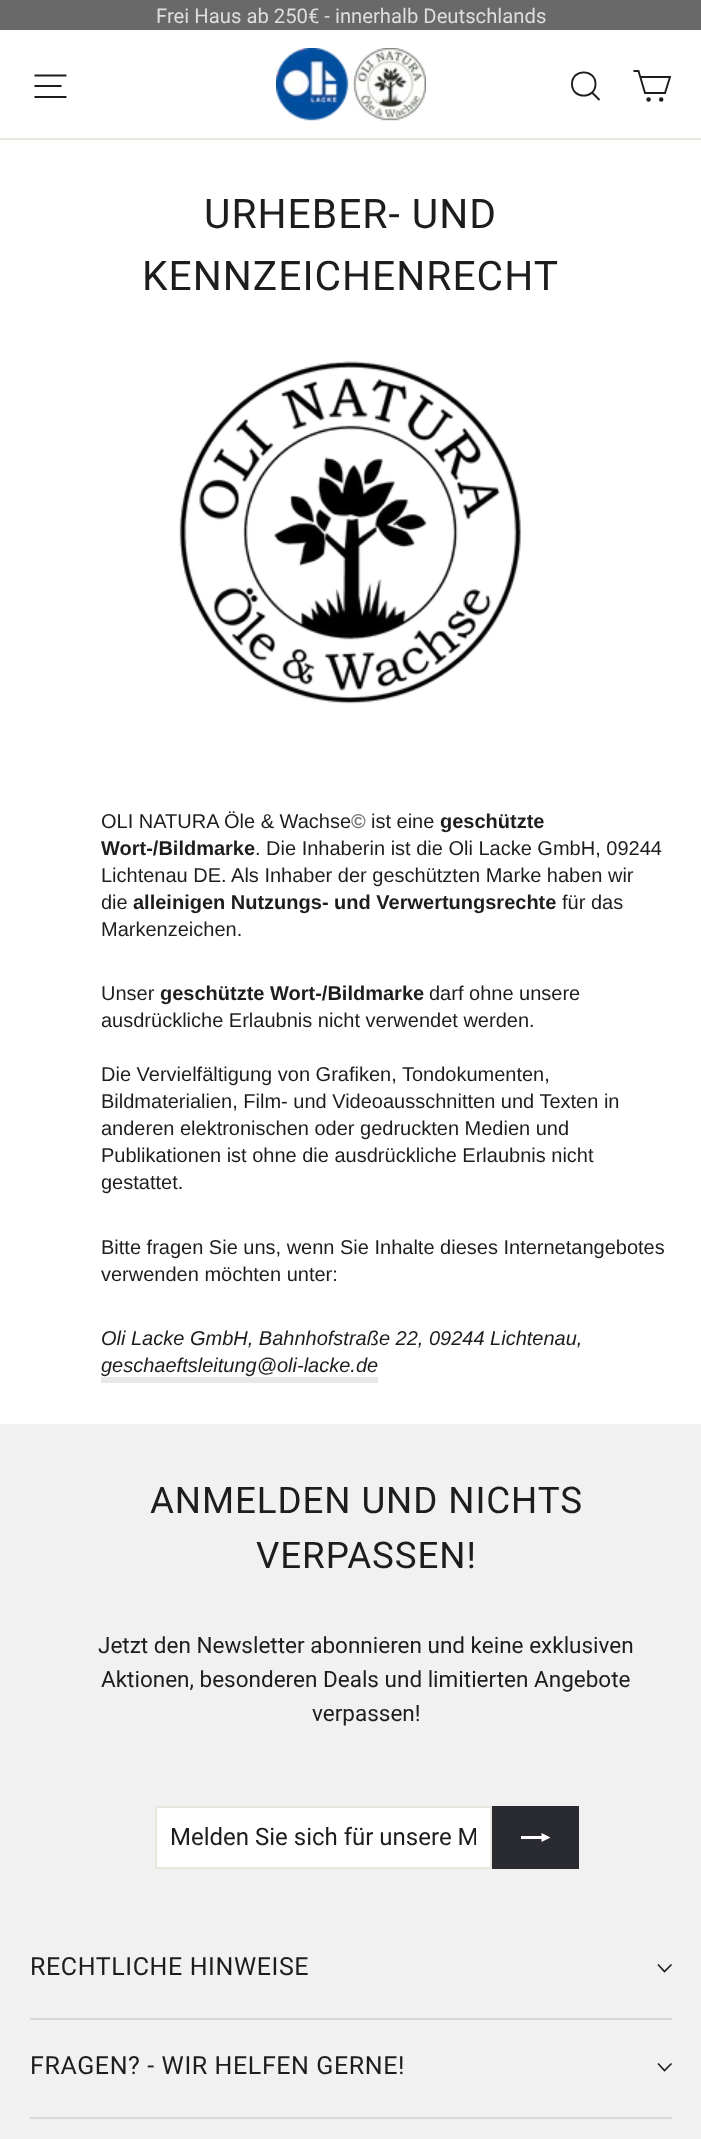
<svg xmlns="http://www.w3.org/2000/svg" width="701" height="2139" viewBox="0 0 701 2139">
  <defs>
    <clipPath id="clip1"><path d="M521 1823h30v30H521z"/></clipPath>
    <clipPath id="clip2"><path d="M171 1823h305v28H171z"/></clipPath>
  </defs>
  <rect width="100%" height="100%" fill="#fff"/>
  <path d="M0 0h701v30H0z" fill="#696969"/>
  <path d="M0 138h701v2H0z" fill="#e8e8e1"/>
  <path d="M34.5 75.5H66.5M34.5 86H61.5M34.5 97H66.5" fill="none" stroke="#1c1d1d" stroke-width="1.9"/>
  <image x="276" y="48" width="150" height="73" href="img/1.png"/>
  <path d="M595.5 84C595.5 99.5 572 99.5 572 84C572 68.5 595.5 68.5 595.5 84ZM599.5 100L592 92.5" fill="none" stroke="#1c1d1d" stroke-width="1.9"/>
  <path d="M640.5 77H670L665 93H645L638.5 71H633.5" fill="none" stroke="#1c1d1d" stroke-width="1.9"/>
  <circle cx="648.6" cy="99.5" r="1.3" fill="#1c1d1d" stroke="#1c1d1d" stroke-width="1.9"/>
  <circle cx="661.2" cy="99.5" r="1.3" fill="#1c1d1d" stroke="#1c1d1d" stroke-width="1.9"/>
  <image x="179" y="361" width="342" height="343" href="img/2.png"/>
  <path d="M101 1377h277v6H101z" fill="#e8e8e8"/>
  <path d="M0 1424h701v715H0z" fill="#f1f1f1"/>
  <path d="M156 1807h335v61H156z" fill="#fff" stroke="#e8e8e1" stroke-width="2"/>
  <path d="M492 1806h87v63H492z" fill="#2a2a31"/>
  <g clip-path="url(#clip1)">
    <path d="M520.5 1839V1836H541.5V1833L550.5 1837.5L541.5 1842V1839Z" fill="#fff"/>
  </g>
  <path d="M658 1964.5L664.5 1971.5L671.5 1964.5" fill="none" stroke="#1c1d1d" stroke-width="1.6"/>
  <path d="M30 2018h642v2H30z" fill="#d7d8d8"/>
  <path d="M658 2063.5L664.5 2070.5L671.5 2063.5" fill="none" stroke="#1c1d1d" stroke-width="1.6"/>
  <path d="M30 2117h642v2H30z" fill="#d7d8d8"/>
  <text x="156" y="23" font-family="Roboto" font-size="20.25" fill="#dedede">Frei Haus ab 250€ - innerhalb Deutschlands</text>
  <g font-family="Roboto" font-size="40.75" letter-spacing="1" fill="#1c1d1d">
    <text x="204" y="228">URHEBER- UND</text>
    <text x="142" y="290">KENNZEICHENRECHT</text>
  </g>
  <text x="101" y="828" font-family="Liberation Sans" font-size="20" fill="#1c1d1d">OLI NATURA Öle &amp; Wachse</text>
  <text x="351" y="828" font-family="Liberation Sans" font-size="20" font-weight="bold" fill="#767676">©</text>
  <text x="371" y="828" font-family="Liberation Sans" font-size="20" fill="#1c1d1d">ist eine</text>
  <g font-family="Liberation Sans" font-size="20" font-weight="bold" fill="#1c1d1d">
    <text x="440" y="828">geschützte</text>
    <text x="101" y="855">Wort-/Bildmarke</text>
  </g>
  <g font-family="Liberation Sans" font-size="20" fill="#1c1d1d">
    <text x="255" y="855">. Die Inhaberin ist die Oli Lacke GmbH, 09244</text>
    <text x="101" y="882">Lichtenau DE. Als Inhaber der geschützten Marke haben wir</text>
    <text x="101" y="909">die</text>
  </g>
  <text x="133" y="909" font-family="Liberation Sans" font-size="20" font-weight="bold" fill="#1c1d1d">alleinigen Nutzungs- und Verwertungsrechte</text>
  <g font-family="Liberation Sans" font-size="20" fill="#1c1d1d">
    <text x="562" y="909">für das</text>
    <text x="101" y="936">Markenzeichen.</text>
    <text x="101" y="1000">Unser</text>
  </g>
  <text x="160" y="1000" font-family="Liberation Sans" font-size="20" font-weight="bold" fill="#1c1d1d">geschützte Wort-/Bildmarke</text>
  <g font-family="Liberation Sans" font-size="20" fill="#1c1d1d">
    <text x="429" y="1000">darf ohne unsere</text>
    <text x="101" y="1027">ausdrückliche Erlaubnis nicht verwendet werden.</text>
    <text x="101" y="1081">Die Vervielfältigung von Grafiken, Tondokumenten,</text>
    <text x="101" y="1108">Bildmaterialien, Film- und Videoausschnitten und Texten in</text>
    <text x="101" y="1135">anderen elektronischen oder gedruckten Medien und</text>
    <text x="101" y="1162">Publikationen ist ohne die ausdrückliche Erlaubnis nicht</text>
    <text x="101" y="1189">gestattet.</text>
    <text x="101" y="1254">Bitte fragen Sie uns, wenn Sie Inhalte dieses Internetangebotes</text>
    <text x="101" y="1281">verwenden möchten unter:</text>
  </g>
  <g font-family="Liberation Sans" font-size="20" font-style="italic" fill="#1c1d1d">
    <text x="101" y="1345">Oli Lacke GmbH, Bahnhofstraße 22, 09244 Lichtenau,</text>
    <text x="101" y="1372">geschaeftsleitung@oli-lacke.de</text>
  </g>
  <g font-family="Roboto" font-size="36.75" letter-spacing="0.9" fill="#1c1d1d">
    <text x="150" y="1513">ANMELDEN UND NICHTS</text>
    <text x="256" y="1568">VERPASSEN!</text>
  </g>
  <g font-family="Roboto" font-size="22.5" fill="#1c1d1d">
    <text x="98" y="1653">Jetzt den Newsletter abonnieren und keine exklusiven</text>
    <text x="101" y="1687">Aktionen, besonderen Deals und limitierten Angebote</text>
    <text x="312" y="1721">verpassen!</text>
  </g>
  <g clip-path="url(#clip2)">
    <text x="170" y="1845" font-family="Roboto" font-size="24" fill="#1c1d1d">Melden Sie sich für unsere M</text>
  </g>
  <g font-family="Roboto" font-size="25" letter-spacing="0.6" fill="#1c1d1d">
    <text x="30" y="1975">RECHTLICHE HINWEISE</text>
    <text x="30" y="2074">FRAGEN? - WIR HELFEN GERNE!</text>
  </g>
</svg>
